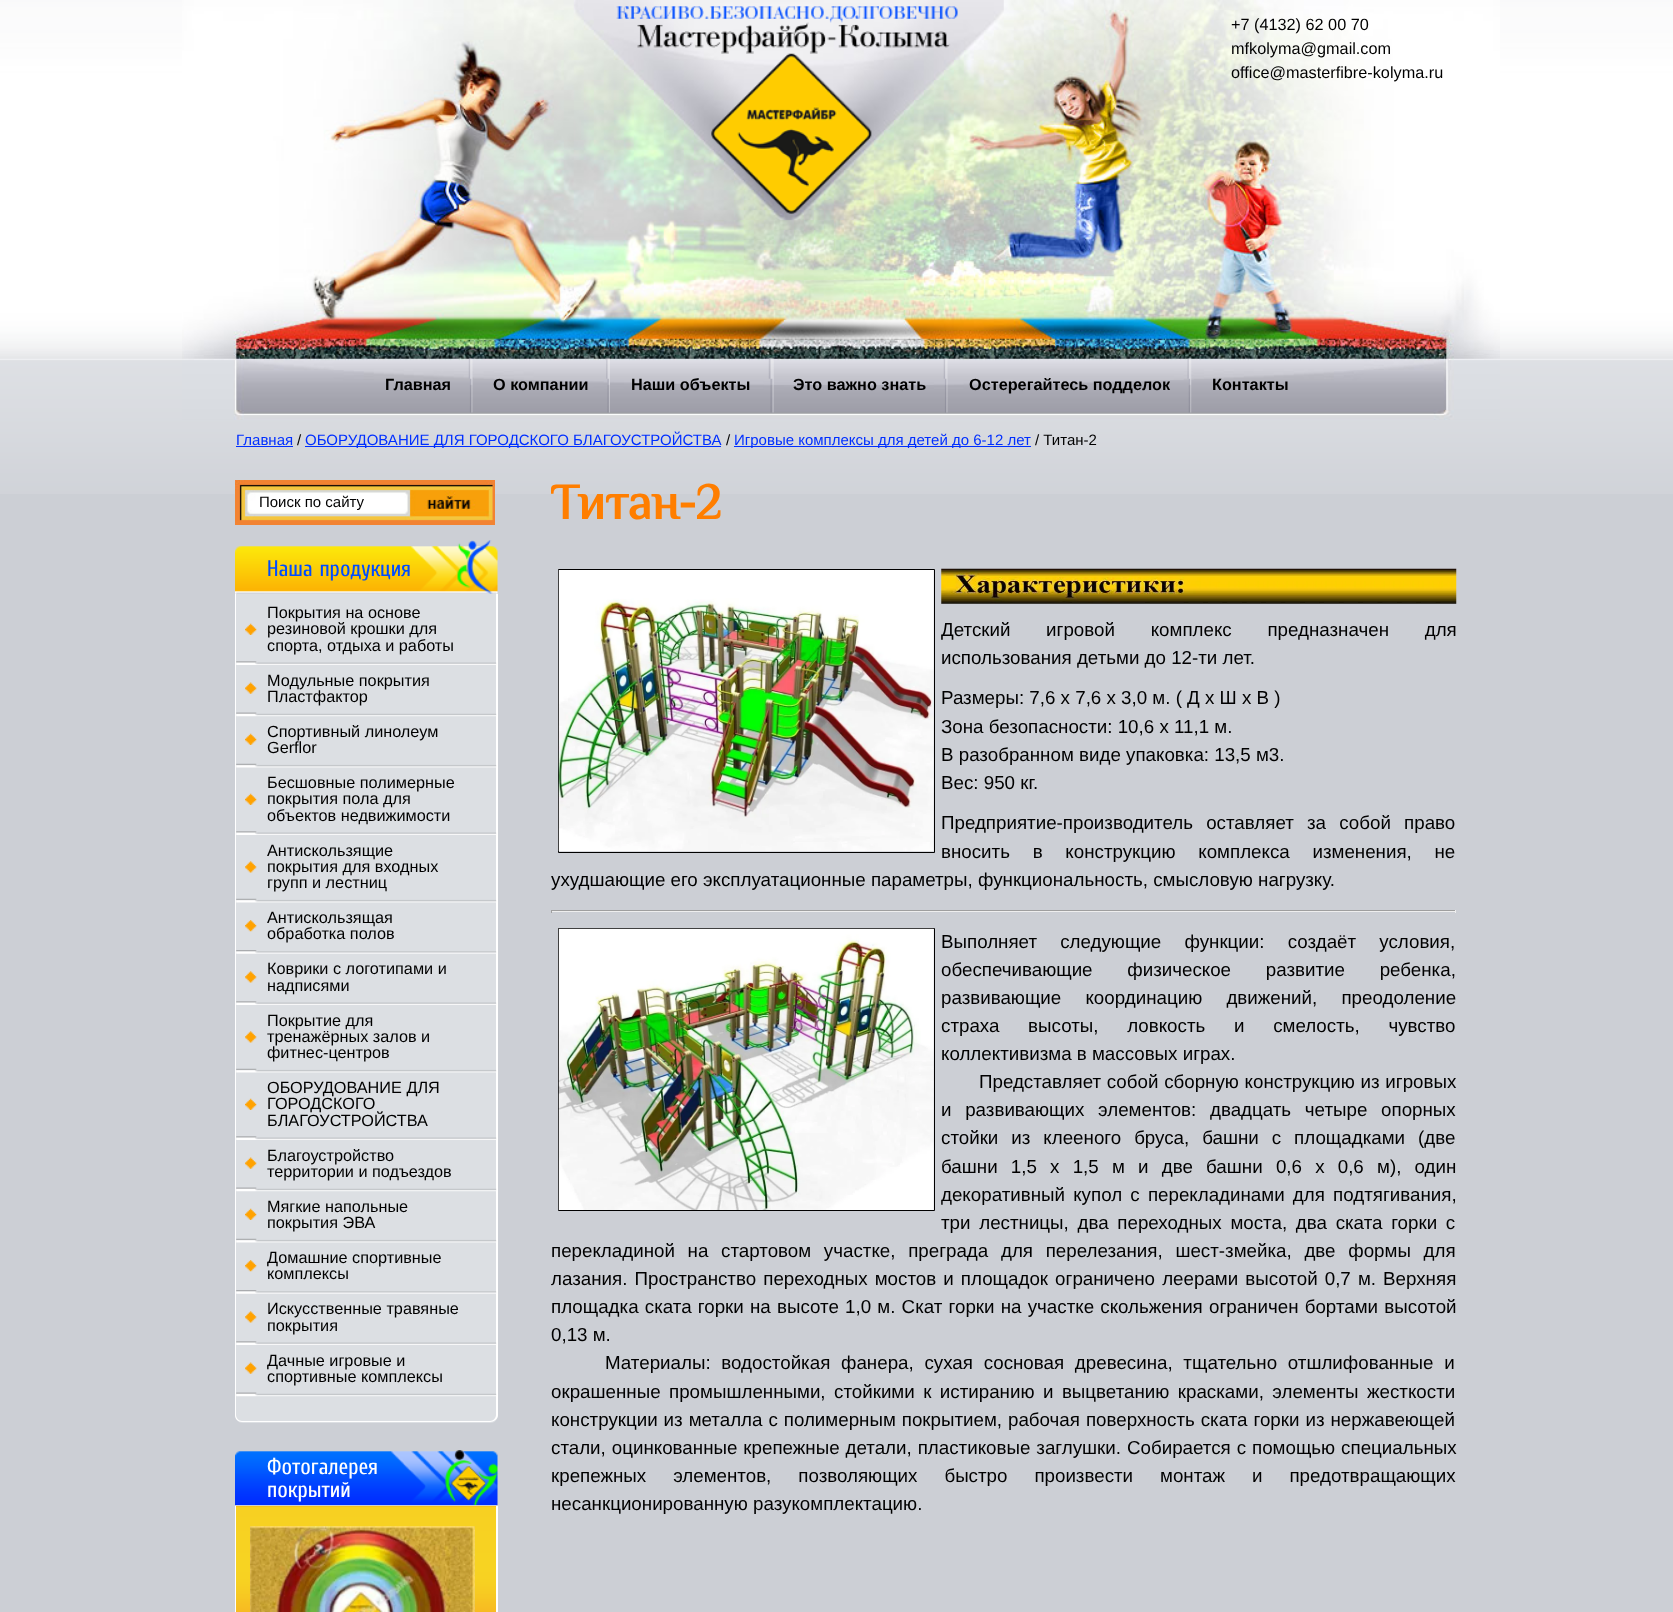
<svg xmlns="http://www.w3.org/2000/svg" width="1673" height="1612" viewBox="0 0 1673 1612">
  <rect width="100%" height="100%" fill="#cccfd5"/>
  <image x="0" y="0" width="1673" height="494" href="img/1.png"/>
  <image x="182" y="0" width="1318" height="420" href="img/2.png"/>
  <image x="616" y="6" width="342" height="208" href="img/3.png"/>
  <image x="468" y="358" width="5" height="55" href="img/4.png"/>
  <image x="606" y="358" width="4" height="55" href="img/5.png"/>
  <image x="768" y="358" width="6" height="55" href="img/6.png"/>
  <image x="943" y="358" width="5" height="55" href="img/7.png"/>
  <image x="1187" y="358" width="5" height="55" href="img/8.png"/>
  <path d="M236 446h57v1H236z" fill="#002fff"/>
  <path d="M305 446h416v1H305z" fill="#002fff"/>
  <path d="M734 446h297v1H734z" fill="#002fff"/>
  <image x="235" y="480" width="260" height="45" href="img/9.png"/>
  <image x="235" y="540" width="263" height="54" href="img/10.png"/>
  <path d="M235 594H498V1415C498 1419.5 494.5 1423 490 1423H243C238.5 1423 235 1419.5 235 1415Z" fill="#dcdfe3"/>
  <path d="M235 594H498V1415C498 1419 494 1422 490 1422H242C238 1422 235 1419 235 1415ZM236 594H496V1415C496 1418 493 1421 490 1421H242C239 1421 236 1418 236 1415Z" fill="#fff" fill-rule="evenodd"/>
  <image x="236" y="661" width="261" height="4" href="img/11.png"/>
  <image x="245" y="623" width="12" height="12" href="img/12.png"/>
  <image x="236" y="712" width="261" height="5" href="img/13.png"/>
  <image x="245" y="682" width="12" height="12" href="img/14.png"/>
  <image x="236" y="763" width="261" height="5" href="img/15.png"/>
  <image x="245" y="733" width="12" height="12" href="img/12.png"/>
  <image x="236" y="831" width="261" height="4" href="img/11.png"/>
  <image x="245" y="793" width="12" height="12" href="img/12.png"/>
  <image x="236" y="898" width="261" height="5" href="img/15.png"/>
  <image x="245" y="861" width="12" height="12" href="img/16.png"/>
  <image x="236" y="950" width="261" height="4" href="img/17.png"/>
  <image x="245" y="920" width="12" height="12" href="img/18.png"/>
  <image x="236" y="1001" width="261" height="4" href="img/11.png"/>
  <image x="245" y="971" width="12" height="12" href="img/16.png"/>
  <image x="236" y="1068" width="261" height="5" href="img/15.png"/>
  <image x="245" y="1031" width="12" height="12" href="img/16.png"/>
  <image x="236" y="1136" width="261" height="4" href="img/11.png"/>
  <image x="245" y="1098" width="12" height="12" href="img/12.png"/>
  <image x="236" y="1187" width="261" height="5" href="img/13.png"/>
  <image x="245" y="1157" width="12" height="12" href="img/14.png"/>
  <image x="236" y="1238" width="261" height="5" href="img/15.png"/>
  <image x="245" y="1208" width="12" height="12" href="img/12.png"/>
  <image x="236" y="1290" width="261" height="4" href="img/17.png"/>
  <image x="245" y="1260" width="12" height="12" href="img/18.png"/>
  <image x="236" y="1341" width="261" height="4" href="img/11.png"/>
  <image x="245" y="1311" width="12" height="12" href="img/16.png"/>
  <image x="236" y="1392" width="261" height="5" href="img/13.png"/>
  <image x="245" y="1362" width="12" height="12" href="img/14.png"/>
  <image x="235" y="1450" width="263" height="55" href="img/19.png"/>
  <path d="M236 1506h260v1H236z" fill="#f7a922"/>
  <image x="236" y="1506" width="260" height="106" href="img/20.png"/>
  <path d="M235 1506H498V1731C498 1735 494 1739 490 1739H242C238 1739 235 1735 235 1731ZM236 1506H496V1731C496 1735 493 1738 490 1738H242C239 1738 236 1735 236 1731Z" fill="#fff" fill-rule="evenodd"/>
  <image x="250" y="1526" width="225" height="86" href="img/21.png"/>
  <path d="M558.5 569.5h376v283H558.5z" fill="none" stroke="#000"/>
  <image x="558" y="570" width="376" height="282" href="img/22.png"/>
  <image x="941" y="568" width="516" height="36" href="img/23.png"/>
  <path d="M551 910h905v1H551z" fill="#9f9f9f"/>
  <path d="M1455 910h1v3H1455z" fill="#eee"/>
  <path d="M551 911h905v1H551z" fill="#eee"/>
  <path d="M551 910h1v3H551z" fill="#9f9f9f"/>
  <path d="M558.5 928.5h376v282H558.5z" fill="none" stroke="#000"/>
  <image x="558" y="928" width="376" height="282" href="img/24.png"/>
  <g font-family="Liberation Sans" font-size="16.25" fill="#000">
    <text x="1231" y="30">+7 (4132) 62 00 70</text>
    <text x="1231" y="54">mfkolyma@gmail.com</text>
    <text x="1231" y="78">office@masterfibre-kolyma.ru</text>
  </g>
  <g font-family="Liberation Sans" font-size="16.25" font-weight="bold" fill="#000">
    <text x="385" y="390">Главная</text>
    <text x="493" y="390">О компании</text>
    <text x="631" y="390">Наши объекты</text>
    <text x="793" y="390">Это важно знать</text>
    <text x="969" y="390">Остерегайтесь подделок</text>
    <text x="1212" y="390">Контакты</text>
  </g>
  <text x="236" y="445" font-family="Liberation Sans" font-size="15" fill="#002fff">Главная</text>
  <text x="297" y="445" font-family="Liberation Sans" font-size="15" fill="#000">/</text>
  <text x="305" y="445" font-family="Liberation Sans" font-size="15" fill="#002fff">ОБОРУДОВАНИЕ ДЛЯ ГОРОДСКОГО БЛАГОУСТРОЙСТВА</text>
  <text x="726" y="445" font-family="Liberation Sans" font-size="15" fill="#000">/</text>
  <text x="734" y="445" font-family="Liberation Sans" font-size="15" fill="#002fff">Игровые комплексы для детей до 6-12 лет</text>
  <g font-family="Liberation Sans" font-size="15" fill="#000">
    <text x="1035" y="445">/ Титан-2</text>
    <text x="259" y="507">Поиск по сайту</text>
  </g>
  <text x="267" y="576" font-family="Cuprum" font-size="22.5" fill="#004cff">Наша продукция</text>
  <g font-family="Liberation Sans" font-size="16.25" fill="#000">
    <text x="267" y="618">Покрытия на основе</text>
    <text x="267" y="634">резиновой крошки для</text>
    <text x="267" y="651">спорта, отдыха и работы</text>
    <text x="267" y="686">Модульные покрытия</text>
    <text x="267" y="702">Пластфактор</text>
    <text x="267" y="737">Спортивный линолеум</text>
    <text x="267" y="753">Gerflor</text>
    <text x="267" y="788">Бесшовные полимерные</text>
    <text x="267" y="804">покрытия пола для</text>
    <text x="267" y="821">объектов недвижимости</text>
    <text x="267" y="856">Антискользящие</text>
    <text x="267" y="872">покрытия для входных</text>
    <text x="267" y="888">групп и лестниц</text>
    <text x="267" y="923">Антискользящая</text>
    <text x="267" y="939">обработка полов</text>
    <text x="267" y="974">Коврики с логотипами и</text>
    <text x="267" y="991">надписями</text>
    <text x="267" y="1026">Покрытие для</text>
    <text x="267" y="1042">тренажёрных залов и</text>
    <text x="267" y="1058">фитнес-центров</text>
    <text x="267" y="1093">ОБОРУДОВАНИЕ ДЛЯ</text>
    <text x="267" y="1109">ГОРОДСКОГО</text>
    <text x="267" y="1126">БЛАГОУСТРОЙСТВА</text>
    <text x="267" y="1161">Благоустройство</text>
    <text x="267" y="1177">территории и подъездов</text>
    <text x="267" y="1212">Мягкие напольные</text>
    <text x="267" y="1228">покрытия ЭВА</text>
    <text x="267" y="1263">Домашние спортивные</text>
    <text x="267" y="1279">комплексы</text>
    <text x="267" y="1314">Искусственные травяные</text>
    <text x="267" y="1331">покрытия</text>
    <text x="267" y="1366">Дачные игровые и</text>
    <text x="267" y="1382">спортивные комплексы</text>
  </g>
  <g font-family="Cuprum" font-size="22.5" fill="#fff">
    <text x="267" y="1474">Фотогалерея</text>
    <text x="267" y="1497">покрытий</text>
  </g>
  <text x="551" y="519" font-family="Philosopher" font-size="50" font-weight="bold" fill="#ff7e00">Титан-2</text>
  <g font-family="Liberation Sans" font-size="18.75" fill="#000">
    <text x="941" y="636" word-spacing="30.5">Детский игровой комплекс предназначен для</text>
    <text x="941" y="664">использования детьми до 12-ти лет.</text>
    <text x="941" y="704">Размеры: 7,6 х 7,6 х 3,0 м. ( Д х Ш х В )</text>
    <text x="941" y="733">Зона безопасности: 10,6 х 11,1 м.</text>
    <text x="941" y="761">В разобранном виде упаковка: 13,5 м3.</text>
    <text x="941" y="789">Вес: 950 кг.</text>
    <text x="941" y="829" word-spacing="8">Предприятие-производитель оставляет за собой право</text>
    <text x="941" y="858" word-spacing="17.5">вносить в конструкцию комплекса изменения, не</text>
    <text x="551" y="886">ухудшающие его эксплуатационные параметры, функциональность, смысловую нагрузку.</text>
    <text x="941" y="948" word-spacing="18">Выполняет следующие функции: создаёт условия,</text>
    <text x="941" y="976" word-spacing="29.5">обеспечивающие физическое развитие ребенка,</text>
    <text x="941" y="1004" word-spacing="19">развивающие координацию движений, преодоление</text>
    <text x="941" y="1032" word-spacing="23.5">страха высоты, ловкость и смелость, чувство</text>
    <text x="941" y="1060">коллективизма в массовых играх.</text>
    <text x="979" y="1088" word-spacing="0.5">Представляет собой сборную конструкцию из игровых</text>
    <text x="941" y="1116" word-spacing="8.5">и развивающих элементов: двадцать четыре опорных</text>
    <text x="941" y="1144" word-spacing="7.75">стойки из клееного бруса, башни с площадками (две</text>
    <text x="941" y="1173" word-spacing="8">башни 1,5 х 1,5 м и две башни 0,6 х 0,6 м), один</text>
    <text x="941" y="1201" word-spacing="3">декоративный купол с перекладинами для подтягивания,</text>
    <text x="941" y="1229" word-spacing="3.5">три лестницы, два переходных моста, два ската горки с</text>
    <text x="551" y="1257" word-spacing="7.5">перекладиной на стартовом участке, преграда для перелезания, шест-змейка, две формы для</text>
    <text x="551" y="1285" word-spacing="1.9">лазания. Пространство переходных мостов и площадок ограничено леерами высотой 0,7 м. Верхняя</text>
    <text x="551" y="1313" word-spacing="1">площадка ската горки на высоте 1,0 м. Скат горки на участке скольжения ограничен бортами высотой</text>
    <text x="551" y="1341">0,13 м.</text>
    <text x="605" y="1369" word-spacing="5.5">Материалы: водостойкая фанера, сухая сосновая древесина, тщательно отшлифованные и</text>
    <text x="551" y="1398" word-spacing="3.25">окрашенные промышленными, стойкими к истиранию и выцветанию красками, элементы жесткости</text>
    <text x="551" y="1426" word-spacing="0.75">конструкции из металла с полимерным покрытием, рабочая поверхность ската горки из нержавеющей</text>
    <text x="551" y="1454" word-spacing="0.75">стали, оцинкованные крепежные детали, пластиковые заглушки. Собирается с помощью специальных</text>
    <text x="551" y="1482" word-spacing="21.75">крепежных элементов, позволяющих быстро произвести монтаж и предотвращающих</text>
    <text x="551" y="1510">несанкционированную разукомплектацию.</text>
  </g>
</svg>
